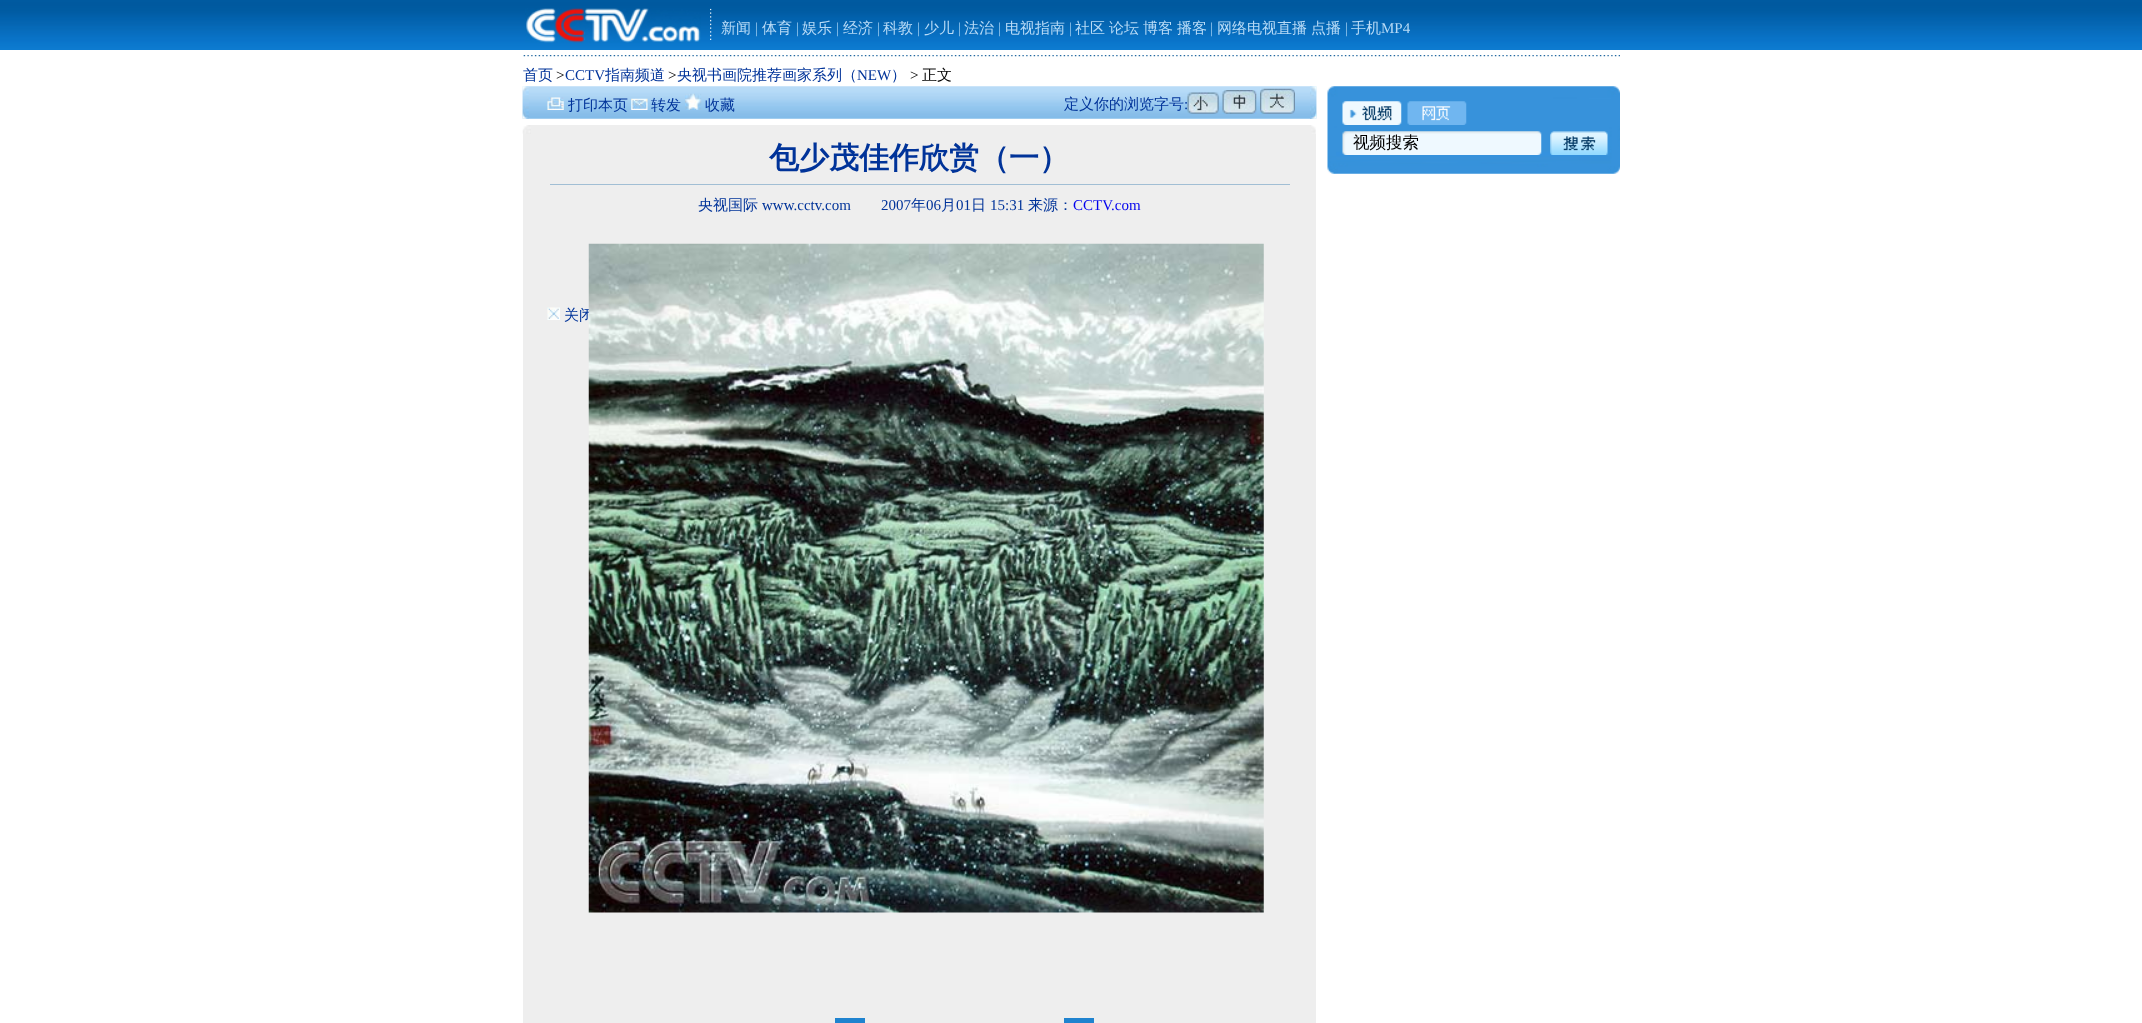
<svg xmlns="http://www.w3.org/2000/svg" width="2142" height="1023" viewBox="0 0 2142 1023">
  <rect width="100%" height="100%" fill="#fff"/>
  <image x="0" y="0" width="2142" height="50" href="img/1.png"/>
  <image x="525" y="8" width="176" height="35" href="img/2.png"/>
  <image x="710" y="8" width="2" height="32" href="img/3.png"/>
  <image x="523" y="55" width="1097" height="2" href="img/4.png"/>
  <image x="522" y="86" width="795" height="33" href="img/5.png"/>
  <image x="522" y="86" width="7" height="33" href="img/6.png"/>
  <image x="547" y="97" width="17" height="13" href="img/7.png"/>
  <image x="631" y="98" width="17" height="12" href="img/8.png"/>
  <image x="685" y="93" width="17" height="17" href="img/9.png"/>
  <path d="M523 125h793v898H523z" fill="#eee"/>
  <image x="547" y="307" width="13" height="13" href="img/10.png"/>
  <image x="1310" y="86" width="7" height="33" href="img/11.png"/>
  <image x="1187" y="92" width="32" height="22" href="img/12.png"/>
  <image x="1222" y="90" width="35" height="24" href="img/13.png"/>
  <image x="1260" y="88" width="35" height="26" href="img/14.png"/>
  <image x="522" y="125" width="9" height="9" href="img/15.png"/>
  <image x="1311" y="125" width="5" height="9" href="img/16.png"/>
  <path d="M550 184h740v1H550z" fill="#a1bed4"/>
  <path d="M835 1018h30v5H835z" fill="#1f83cf"/>
  <path d="M1064 1018h30v5H1064z" fill="#1f83cf"/>
  <image x="1327" y="86" width="293" height="88" href="img/18.png"/>
  <image x="1342" y="101" width="60" height="24" href="img/19.png"/>
  <image x="1407" y="101" width="60" height="24" href="img/20.png"/>
  <image x="1342" y="131" width="200" height="24" href="img/21.png"/>
  <image x="1550" y="131" width="58" height="24" href="img/22.png"/>
  <text x="721" y="33" font-family="WenQuanYi Zen Hei" font-size="15" font-weight="500" fill="#b8dbf7">新闻</text>
  <text x="755" y="33" font-family="Liberation Serif" font-size="15" fill="#9acaf0">|</text>
  <text x="762" y="33" font-family="WenQuanYi Zen Hei" font-size="15" font-weight="500" fill="#b8dbf7">体育</text>
  <text x="796" y="33" font-family="Liberation Serif" font-size="15" fill="#9acaf0">|</text>
  <text x="802" y="33" font-family="WenQuanYi Zen Hei" font-size="15" font-weight="500" fill="#b8dbf7">娱乐</text>
  <text x="836" y="33" font-family="Liberation Serif" font-size="15" fill="#9acaf0">|</text>
  <text x="843" y="33" font-family="WenQuanYi Zen Hei" font-size="15" font-weight="500" fill="#b8dbf7">经济</text>
  <text x="877" y="33" font-family="Liberation Serif" font-size="15" fill="#9acaf0">|</text>
  <text x="883" y="33" font-family="WenQuanYi Zen Hei" font-size="15" font-weight="500" fill="#b8dbf7">科教</text>
  <text x="917" y="33" font-family="Liberation Serif" font-size="15" fill="#9acaf0">|</text>
  <text x="924" y="33" font-family="WenQuanYi Zen Hei" font-size="15" font-weight="500" fill="#b8dbf7">少儿</text>
  <text x="958" y="33" font-family="Liberation Serif" font-size="15" fill="#9acaf0">|</text>
  <text x="964" y="33" font-family="WenQuanYi Zen Hei" font-size="15" font-weight="500" fill="#b8dbf7">法治</text>
  <text x="998" y="33" font-family="Liberation Serif" font-size="15" fill="#9acaf0">|</text>
  <text x="1005" y="33" font-family="WenQuanYi Zen Hei" font-size="15" font-weight="500" fill="#b8dbf7">电视指南</text>
  <text x="1069" y="33" font-family="Liberation Serif" font-size="15" fill="#9acaf0">|</text>
  <g font-family="WenQuanYi Zen Hei" font-size="15" font-weight="500" fill="#b8dbf7">
    <text x="1075" y="33">社区</text>
    <text x="1109" y="33">论坛</text>
    <text x="1143" y="33">博客</text>
    <text x="1177" y="33">播客</text>
  </g>
  <text x="1210" y="33" font-family="Liberation Serif" font-size="15" fill="#9acaf0">|</text>
  <g font-family="WenQuanYi Zen Hei" font-size="15" font-weight="500" fill="#b8dbf7">
    <text x="1217" y="33">网络电视直播</text>
    <text x="1311" y="33">点播</text>
  </g>
  <text x="1345" y="33" font-family="Liberation Serif" font-size="15" fill="#9acaf0">|</text>
  <text x="1351" y="33" font-family="WenQuanYi Zen Hei" font-size="15" font-weight="500" fill="#b8dbf7">手机</text>
  <text x="1381" y="33" font-family="Liberation Serif" font-size="15" fill="#b8dbf7">MP4</text>
  <text x="523" y="80" font-family="WenQuanYi Zen Hei" font-size="15" font-weight="500" fill="#039">首页</text>
  <text x="556" y="80" font-family="Liberation Serif" font-size="15" fill="#000">&gt;</text>
  <text x="565" y="80" font-family="Liberation Serif" font-size="15" fill="#039">CCTV</text>
  <text x="605" y="80" font-family="WenQuanYi Zen Hei" font-size="15" font-weight="500" fill="#039">指南频道</text>
  <text x="668" y="80" font-family="Liberation Serif" font-size="15" fill="#000">&gt;</text>
  <text x="677" y="80" font-family="WenQuanYi Zen Hei" font-size="15" font-weight="500" fill="#039">央视书画院推荐画家系列（</text>
  <text x="857" y="80" font-family="Liberation Serif" font-size="15" fill="#039">NEW</text>
  <text x="891" y="80" font-family="WenQuanYi Zen Hei" font-size="15" font-weight="500" fill="#039">）</text>
  <text x="910" y="80" font-family="Liberation Serif" font-size="15" fill="#000">&gt;</text>
  <text x="922" y="80" font-family="WenQuanYi Zen Hei" font-size="15" font-weight="500" fill="#000">正文</text>
  <g font-family="WenQuanYi Zen Hei" font-size="15" font-weight="500" fill="#039">
    <text x="568" y="110">打印本页</text>
    <text x="651" y="110">转发</text>
    <text x="705" y="110">收藏</text>
    <text x="564" y="320">关闭</text>
    <text x="1064" y="109">定义你的浏览字号</text>
  </g>
  <text x="1184" y="109" font-family="Liberation Serif" font-size="15" fill="#039">:</text>
  <text x="769" y="168" font-family="WenQuanYi Zen Hei" font-size="30" font-weight="bold" fill="#039">包少茂佳作欣赏（一）</text>
  <text x="698" y="210" font-family="WenQuanYi Zen Hei" font-size="15" font-weight="500" fill="#039">央视国际</text>
  <g font-family="Liberation Serif" font-size="15" fill="#039">
    <text x="762" y="210">www.cctv.com</text>
    <text x="881" y="210">2007</text>
  </g>
  <text x="911" y="210" font-family="WenQuanYi Zen Hei" font-size="15" font-weight="500" fill="#039">年</text>
  <text x="926" y="210" font-family="Liberation Serif" font-size="15" fill="#039">06</text>
  <text x="941" y="210" font-family="WenQuanYi Zen Hei" font-size="15" font-weight="500" fill="#039">月</text>
  <text x="956" y="210" font-family="Liberation Serif" font-size="15" fill="#039">01</text>
  <text x="971" y="210" font-family="WenQuanYi Zen Hei" font-size="15" font-weight="500" fill="#039">日</text>
  <text x="990" y="210" font-family="Liberation Serif" font-size="15" fill="#039">15:31</text>
  <text x="1028" y="210" font-family="WenQuanYi Zen Hei" font-size="15" font-weight="500" fill="#039">来源：</text>
  <text x="1073" y="210" font-family="Liberation Serif" font-size="15" fill="#00e">CCTV.com</text>
  <image x="588" y="243" width="676" height="670" href="img/17.png"/>
  <text x="1353" y="148" font-family="WenQuanYi Zen Hei" font-size="16.5" font-weight="500" fill="#000">视频搜索</text>
</svg>
